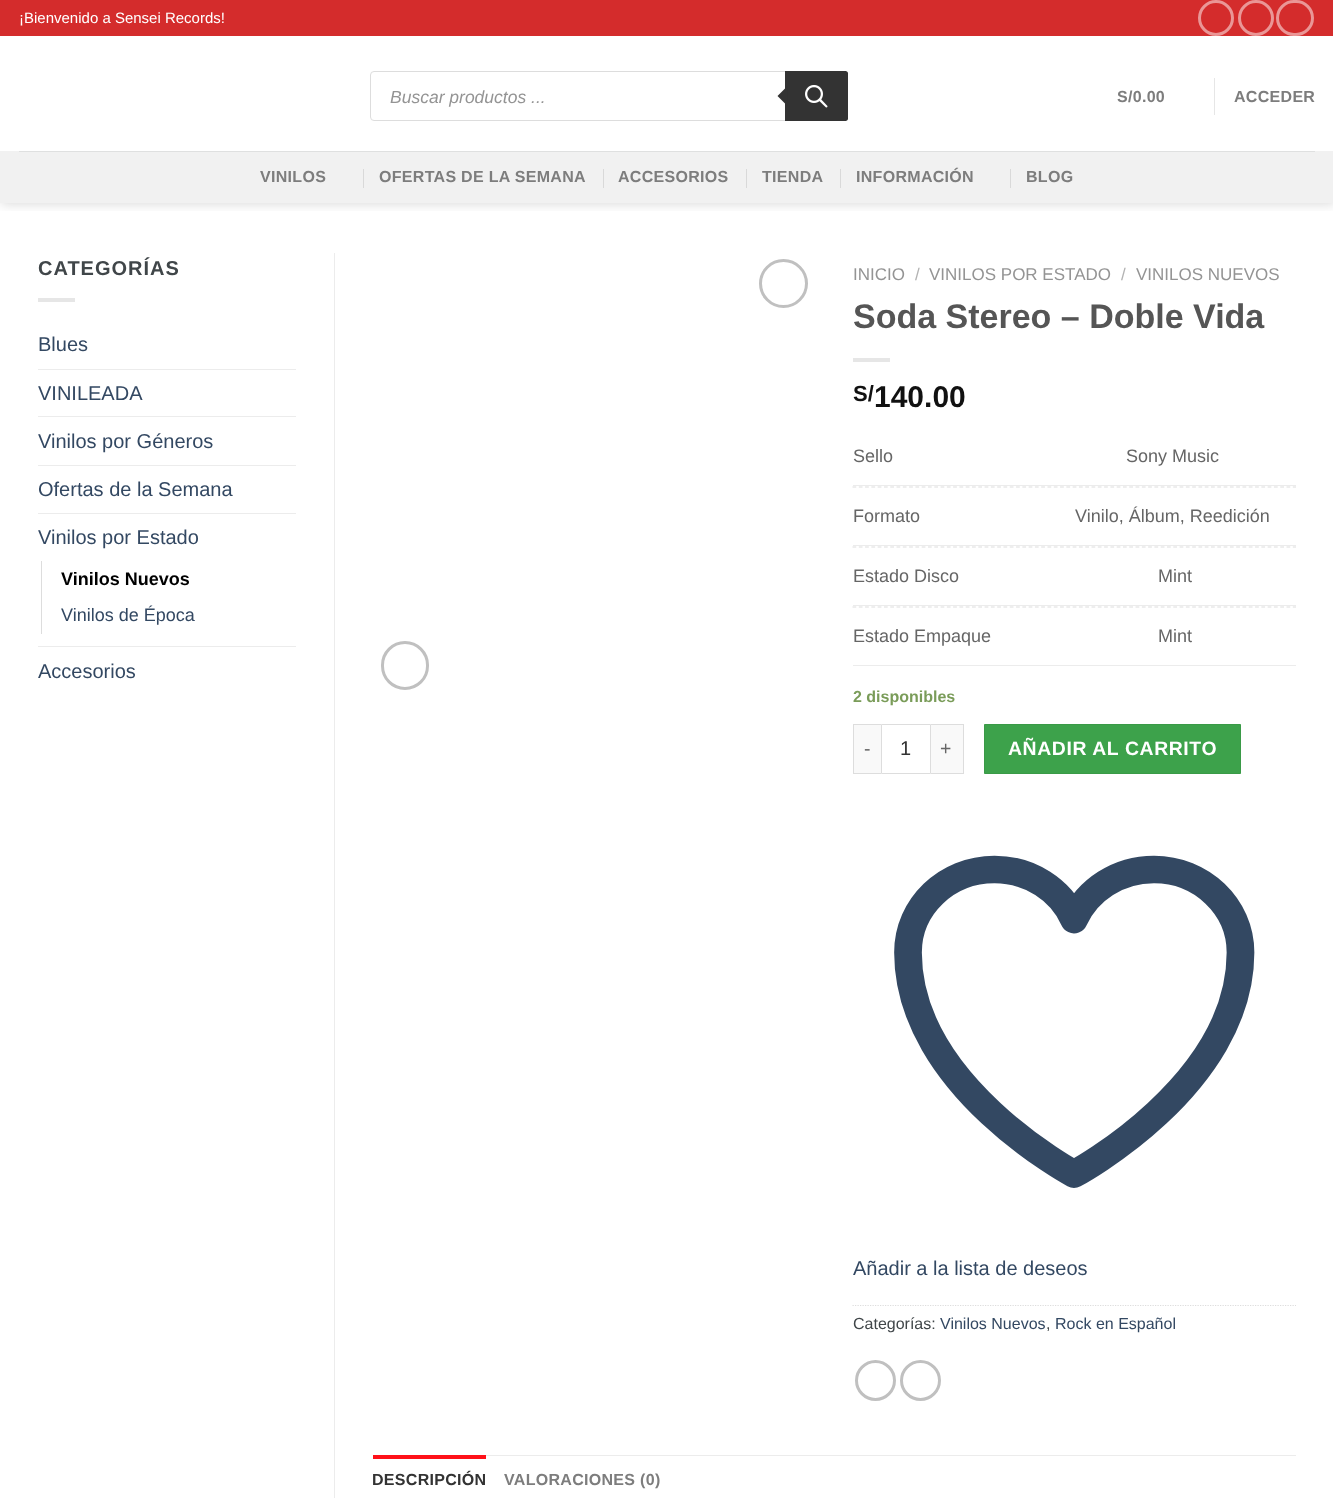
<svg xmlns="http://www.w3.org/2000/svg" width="1333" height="1498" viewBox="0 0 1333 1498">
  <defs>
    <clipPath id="clip1"><path d="M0 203h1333v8H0z"/></clipPath>
  </defs>
  <rect width="100%" height="100%" fill="#fff"/>
  <g clip-path="url(#clip1)">
    <path d="M1 1h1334v203H1z" fill="#00000026" filter="blur(6px)"/>
  </g>
  <path d="M0 0h1333v36H0z" fill="#d42c2c"/>
  <circle cx="1216" cy="18" r="16.5" fill="none" stroke="#ea9696" stroke-width="3"/>
  <circle cx="1256" cy="18" r="16.5" fill="none" stroke="#ea9696" stroke-width="3"/>
  <rect x="1277.5" y="1.5" width="35" height="33" rx="16.5" fill="none" stroke="#ea9696" stroke-width="3"/>
  <rect x="370.5" y="71.5" width="477" height="49" rx="3.5" fill="none" stroke="#ddd"/>
  <path d="M785 71H845.5C847 71 848 72 848 73.5V118.5C848 120 847 121 845.5 121H785Z" fill="#333"/>
  <path d="M787.5 86V106L777.5 96Z" fill="#333"/>
  <image x="805" y="85" width="23" height="23" href="img/1.png"/>
  <path d="M1214 78h1v37H1214z" fill="#e6e6e6"/>
  <path d="M0 151h1333v52H0z" fill="#f1f1f1"/>
  <path d="M19 151h1296v1H19z" fill="#dfe0e0"/>
  <path d="M363 169h1v19H363z" fill="#d9d9d9"/>
  <path d="M603 169h1v19H603z" fill="#d9d9d9"/>
  <path d="M746 169h1v19H746z" fill="#d9d9d9"/>
  <path d="M840 169h1v19H840z" fill="#d9d9d9"/>
  <path d="M1010 169h1v19H1010z" fill="#d9d9d9"/>
  <path d="M38 298h37v4H38z" fill="#e6e6e6"/>
  <path d="M38 369h258v1H38z" fill="#ececec"/>
  <path d="M38 416h258v1H38z" fill="#ececec"/>
  <path d="M38 465h258v1H38z" fill="#ececec"/>
  <path d="M38 513h258v1H38z" fill="#ececec"/>
  <path d="M41 561h1v73H41z" fill="#ddd"/>
  <path d="M38 646h258v1H38z" fill="#ececec"/>
  <path d="M334 253h1v1245H334z" fill="#ececec"/>
  <circle cx="783.5" cy="283.5" r="23" fill="none" stroke="#c0c0c0" stroke-width="3"/>
  <rect x="382.5" y="642.5" width="45" height="46" rx="22.5" fill="none" stroke="#c0c0c0" stroke-width="3"/>
  <path d="M853 358h37v4H853z" fill="#e6e6e6"/>
  <path d="M853 485h443v1H853z" fill="#ececec"/>
  <path d="M852.5 487H1296" fill="none" stroke="#ddd" stroke-width="1.2" stroke-dasharray="3.75 2.54"/>
  <path d="M853 545h443v1H853z" fill="#ececec"/>
  <path d="M852.5 547H1296" fill="none" stroke="#ddd" stroke-width="1.2" stroke-dasharray="3.75 2.54"/>
  <path d="M853 605h443v1H853z" fill="#ececec"/>
  <path d="M852.5 607H1296" fill="none" stroke="#ddd" stroke-width="1.2" stroke-dasharray="3.75 2.54"/>
  <path d="M853 665h443v1H853z" fill="#ececec"/>
  <path d="M854 725h27v48H854z" fill="#f9f9f9"/>
  <path d="M853 724h28v1H853z" fill="#ddd"/>
  <path d="M853 773h28v1H853z" fill="#ddd"/>
  <path d="M853 724h1v50H853z" fill="#ddd"/>
  <path d="M881.5 724.5h49v49H881.5z" fill="none" stroke="#ddd"/>
  <path d="M931 725h32v48H931z" fill="#f9f9f9"/>
  <path d="M931 724h33v1H931z" fill="#ddd"/>
  <path d="M963 724h1v50H963z" fill="#ddd"/>
  <path d="M931 773h33v1H931z" fill="#ddd"/>
  <path d="M984.5 724.5h256v49H984.5z" fill="#3da24b" stroke="#3a9a47"/>
  <path d="M1240.5 952.5C1240.5 906.5 1201.5 869.5 1154 869.5C1118 869.5 1087.5 890 1074 919.5C1061 890 1030 869.5 994.5 869.5C946.5 869.5 908 906.5 908 952.5C908 1085.5 1074 1174 1074 1174C1074 1174 1240.5 1085.5 1240.5 952.5Z" fill="none" stroke="#334862" stroke-width="27.7" stroke-linecap="round" stroke-linejoin="round"/>
  <path d="M852.5 1305.5H1296" fill="none" stroke="#ddd" stroke-width="1.2" stroke-dasharray="1.25 1.25"/>
  <circle cx="875.5" cy="1380.5" r="19" fill="none" stroke="#c0c0c0" stroke-width="3"/>
  <circle cx="920.5" cy="1380.5" r="19" fill="none" stroke="#c0c0c0" stroke-width="3"/>
  <path d="M486 1455h810v1H486z" fill="#ececec"/>
  <path d="M373 1455h113v4H373z" fill="#ff1119"/>
  <text x="19" y="23" font-family="Liberation Sans" font-size="15" fill="#fff">¡Bienvenido a Sensei Records!</text>
  <text x="390" y="103" font-family="Liberation Sans" font-size="17.5" font-style="italic" fill="#949494">Buscar productos ...</text>
  <g font-family="Liberation Sans" font-size="16" font-weight="bold" letter-spacing="0.3" fill="#7d7d7d">
    <text x="1117" y="102">S/0.00</text>
    <text x="1234" y="102">ACCEDER</text>
    <text x="260" y="182">VINILOS</text>
    <text x="379" y="182">OFERTAS DE LA SEMANA</text>
    <text x="618" y="182">ACCESORIOS</text>
    <text x="762" y="182">TIENDA</text>
    <text x="856" y="182">INFORMACIÓN</text>
    <text x="1026" y="182">BLOG</text>
  </g>
  <text x="38" y="275" font-family="Liberation Sans" font-size="20" font-weight="bold" letter-spacing="1" fill="#404649">CATEGORÍAS</text>
  <g font-family="Liberation Sans" font-size="20" fill="#334862">
    <text x="38" y="351">Blues</text>
    <text x="38" y="400">VINILEADA</text>
    <text x="38" y="448">Vinilos por Géneros</text>
    <text x="38" y="496">Ofertas de la Semana</text>
    <text x="38" y="544">Vinilos por Estado</text>
  </g>
  <text x="61" y="585" font-family="Liberation Sans" font-size="18" font-weight="bold" fill="#000">Vinilos Nuevos</text>
  <text x="61" y="621" font-family="Liberation Sans" font-size="18" fill="#334862">Vinilos de Época</text>
  <text x="38" y="678" font-family="Liberation Sans" font-size="20" fill="#334862">Accesorios</text>
  <text x="853" y="280" font-family="Liberation Sans" font-size="17" fill="#949494">INICIO</text>
  <text x="915" y="280" font-family="Liberation Sans" font-size="17" fill="#b2b2b2">/</text>
  <text x="929" y="280" font-family="Liberation Sans" font-size="17" fill="#949494">VINILOS POR ESTADO</text>
  <text x="1121" y="280" font-family="Liberation Sans" font-size="17" fill="#b2b2b2">/</text>
  <text x="1136" y="280" font-family="Liberation Sans" font-size="17" fill="#949494">VINILOS NUEVOS</text>
  <text x="853" y="328" font-family="Liberation Sans" font-size="34" font-weight="bold" fill="#555">Soda Stereo – Doble Vida</text>
  <text x="853" y="401" font-family="Liberation Sans" font-size="22" font-weight="bold" fill="#111">S/</text>
  <text x="874" y="407" font-family="Liberation Sans" font-size="30" font-weight="bold" fill="#111">140.00</text>
  <g font-family="Liberation Sans" font-size="18" fill="#666">
    <text x="853" y="462">Sello</text>
    <text x="1126" y="462">Sony Music</text>
    <text x="853" y="522">Formato</text>
    <text x="1075" y="522">Vinilo, Álbum, Reedición</text>
    <text x="853" y="582">Estado Disco</text>
    <text x="1158" y="582">Mint</text>
    <text x="853" y="642">Estado Empaque</text>
    <text x="1158" y="642">Mint</text>
  </g>
  <text x="853" y="702" font-family="Liberation Sans" font-size="16" font-weight="bold" fill="#7a9c59">2 disponibles</text>
  <text x="864" y="755" font-family="Liberation Sans" font-size="19.4" letter-spacing="0.6" fill="#666">-</text>
  <text x="900" y="755" font-family="Liberation Sans" font-size="20" fill="#333">1</text>
  <text x="940" y="755" font-family="Liberation Sans" font-size="19.4" letter-spacing="0.6" fill="#666">+</text>
  <text x="1008" y="755" font-family="Liberation Sans" font-size="19.4" font-weight="bold" letter-spacing="0.6" fill="#fff">AÑADIR AL CARRITO</text>
  <text x="853" y="1275" font-family="Liberation Sans" font-size="20" fill="#334862">Añadir a la lista de deseos</text>
  <text x="853" y="1329" font-family="Liberation Sans" font-size="16" fill="#404649">Categorías:</text>
  <text x="940" y="1329" font-family="Liberation Sans" font-size="16" fill="#334862">Vinilos Nuevos</text>
  <text x="1046" y="1329" font-family="Liberation Sans" font-size="16" fill="#404649">,</text>
  <text x="1055" y="1329" font-family="Liberation Sans" font-size="16" fill="#334862">Rock en Español</text>
  <text x="372" y="1485" font-family="Liberation Sans" font-size="16" font-weight="bold" letter-spacing="0.3" fill="#333">DESCRIPCIÓN</text>
  <text x="504" y="1485" font-family="Liberation Sans" font-size="16" font-weight="bold" letter-spacing="0.3" fill="#7d7d7d">VALORACIONES (0)</text>
</svg>
